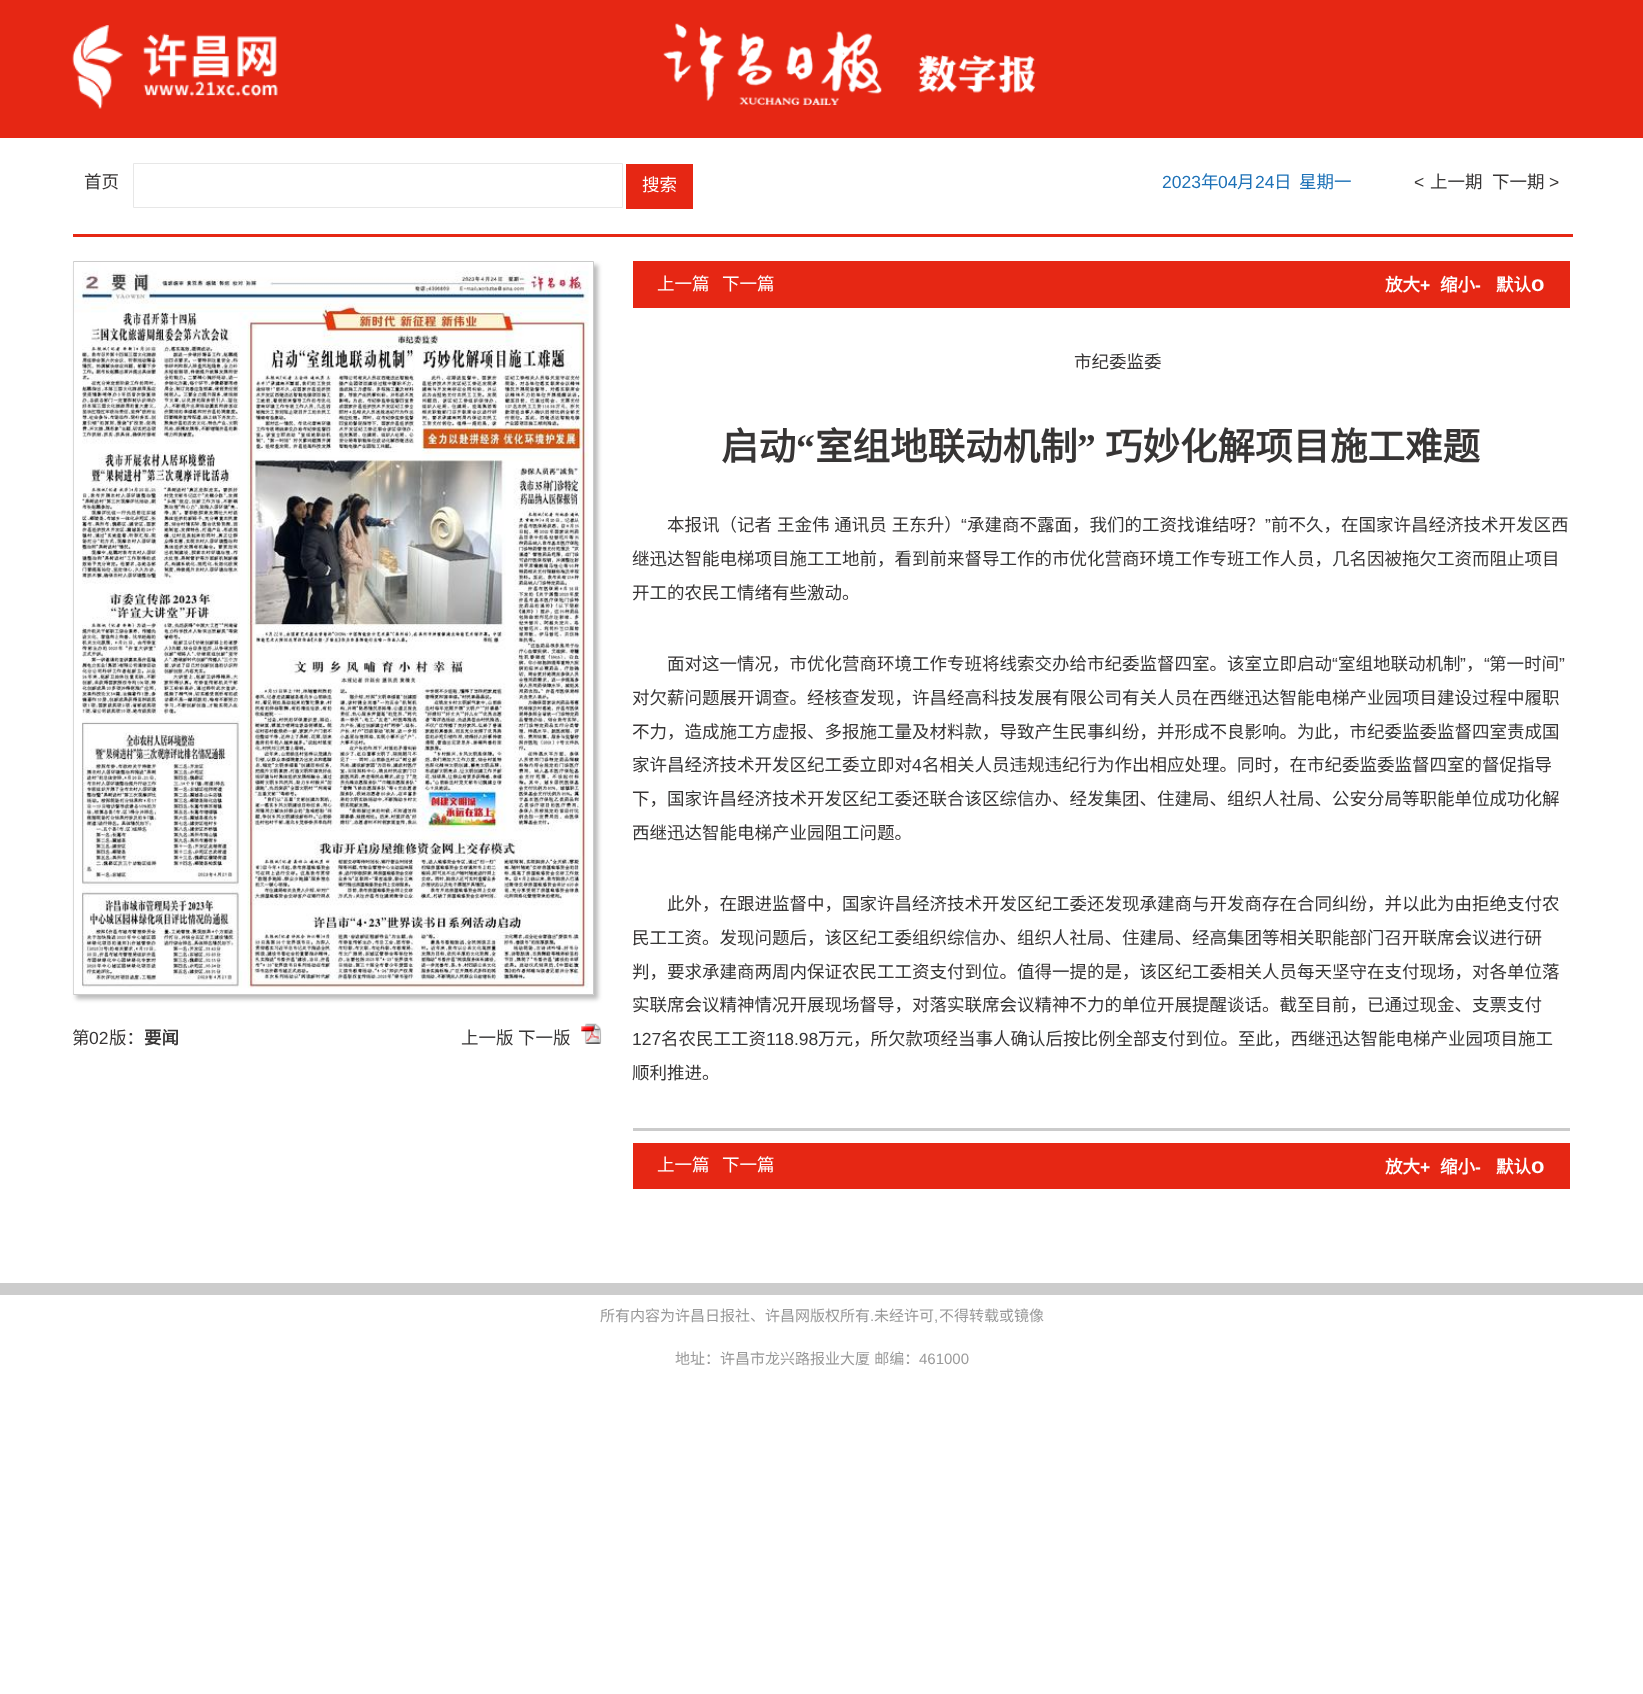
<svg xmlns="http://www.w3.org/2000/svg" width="1643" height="1694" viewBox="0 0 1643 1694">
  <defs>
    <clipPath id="clip1"><path d="M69 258H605V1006H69ZM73 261H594V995H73Z" clip-rule="evenodd"/></clipPath>
  </defs>
  <rect width="100%" height="100%" fill="#fff"/>
  <path d="M0 0h1643v138H0z" fill="#e62714"/>
  <image x="72" y="25" width="206" height="84" href="img/1.png"/>
  <image x="663" y="23" width="219" height="82" href="img/2.png"/>
  <image x="918" y="55" width="117" height="38" href="img/3.png"/>
  <path d="M73 234h1500v3H73z" fill="#e62714"/>
  <path d="M133.5 163.5h489v44H133.5z" fill="none" stroke="#e7e7e7"/>
  <path d="M626 164h67v45H626z" fill="#e62714"/>
  <g clip-path="url(#clip1)">
    <path d="M76 265h522v734H76z" fill="#bcbcbc" filter="blur(2px)"/>
  </g>
  <path d="M73.5 261.5h520v733H73.5z" fill="none" stroke="#cbcbcb"/>
  <image x="73" y="262" width="516" height="732" href="img/4.png"/>
  <image x="581" y="1023" width="21" height="21" href="img/5.png"/>
  <path d="M633 261h937v47H633z" fill="#e62714"/>
  <path d="M633 1128h937v3H633z" fill="#cbcbcb"/>
  <path d="M633 1143h937v46H633z" fill="#e62714"/>
  <path d="M0 1283h1643v12H0z" fill="#ccc"/>
  <text x="84" y="188" font-family="Noto Sans CJK SC" font-size="17.5" fill="#373535">首页</text>
  <text x="642" y="191" font-family="Noto Sans CJK SC" font-size="17.5" fill="#fff">搜索</text>
  <text x="1162" y="188" font-family="Liberation Sans" font-size="17.5" fill="#1d71b7">2023</text>
  <text x="1201" y="188" font-family="Noto Sans CJK SC" font-size="17.5" fill="#1d71b7">年</text>
  <text x="1218" y="188" font-family="Liberation Sans" font-size="17.5" fill="#1d71b7">04</text>
  <text x="1237" y="188" font-family="Noto Sans CJK SC" font-size="17.5" fill="#1d71b7">月</text>
  <text x="1255" y="188" font-family="Liberation Sans" font-size="17.5" fill="#1d71b7">24</text>
  <g font-family="Noto Sans CJK SC" font-size="17.5" fill="#1d71b7">
    <text x="1274" y="188">日</text>
    <text x="1299" y="188">星期一</text>
  </g>
  <text x="1414" y="188" font-family="Liberation Sans" font-size="17.5" fill="#373535">&lt;</text>
  <g font-family="Noto Sans CJK SC" font-size="17.5" fill="#373535">
    <text x="1430" y="188">上一期</text>
    <text x="1492" y="188">下一期</text>
  </g>
  <text x="1549" y="188" font-family="Liberation Sans" font-size="17.5" fill="#373535">&gt;</text>
  <text x="72" y="1044" font-family="Noto Sans CJK SC" font-size="17.5" fill="#373535">第</text>
  <text x="89" y="1044" font-family="Liberation Sans" font-size="17.5" fill="#373535">02</text>
  <text x="109" y="1044" font-family="Noto Sans CJK SC" font-size="17.5" fill="#373535">版：</text>
  <text x="144" y="1044" font-family="Noto Sans CJK SC" font-size="17.5" font-weight="bold" fill="#373535">要闻</text>
  <g font-family="Noto Sans CJK SC" font-size="17.5" fill="#373535">
    <text x="461" y="1044">上一版</text>
    <text x="518" y="1044">下一版</text>
  </g>
  <g font-family="Noto Sans CJK SC" font-size="17.5" fill="#fff">
    <text x="657" y="290">上一篇</text>
    <text x="722" y="290">下一篇</text>
  </g>
  <text x="1385" y="291" font-family="Noto Sans CJK SC" font-size="17.5" font-weight="bold" fill="#fff">放大</text>
  <text x="1420" y="291" font-family="Liberation Sans" font-size="17.5" font-weight="bold" fill="#fff">+</text>
  <text x="1440" y="291" font-family="Noto Sans CJK SC" font-size="17.5" font-weight="bold" fill="#fff">缩小</text>
  <text x="1475" y="291" font-family="Liberation Sans" font-size="17.5" font-weight="bold" fill="#fff">-</text>
  <text x="1496" y="291" font-family="Noto Sans CJK SC" font-size="17.5" font-weight="bold" fill="#fff">默认</text>
  <text x="1531" y="291" font-family="Liberation Sans" font-size="22" font-weight="bold" fill="#fff">o</text>
  <text x="1074" y="368" font-family="Noto Sans CJK SC" font-size="17.5" fill="#373535">市纪委监委</text>
  <text x="721" y="460" font-family="Noto Sans CJK SC" font-size="37.5" font-weight="bold" fill="#373535">启动</text>
  <text x="796" y="460" font-family="Liberation Serif" font-size="37.5" font-weight="bold" fill="#373535">“</text>
  <text x="815" y="460" font-family="Noto Sans CJK SC" font-size="37.5" font-weight="bold" fill="#373535">室组地联动机制</text>
  <text x="1077" y="460" font-family="Liberation Serif" font-size="37.5" font-weight="bold" fill="#373535">”</text>
  <text x="1105" y="460" font-family="Noto Sans CJK SC" font-size="37.5" font-weight="bold" fill="#373535">巧妙化解项目施工难题</text>
  <text x="667" y="531" word-spacing="1" font-family="Noto Sans CJK SC" font-size="17.5" fill="#373535">本报讯（记者 王金伟 通讯员 王东升）</text>
  <text x="961" y="531" font-family="Liberation Sans" font-size="17.5" fill="#373535">“</text>
  <text x="967" y="531" font-family="Noto Sans CJK SC" font-size="17.5" fill="#373535">承建商不露面，我们的工资找谁结呀？</text>
  <text x="1265" y="531" font-family="Liberation Sans" font-size="17.5" fill="#373535">”</text>
  <g font-family="Noto Sans CJK SC" font-size="17.5" fill="#373535">
    <text x="1271" y="531">前不久，在国家许昌经济技术开发区西</text>
    <text x="632" y="565">继迅达智能电梯项目施工工地前，看到前来督导工作的市优化营商环境工作专班工作人员，几名因被拖欠工资而阻止项目</text>
    <text x="632" y="599">开工的农民工情绪有些激动。</text>
    <text x="667" y="670">面对这一情况，市优化营商环境工作专班将线索交办给市纪委监督四室。该室立即启动</text>
  </g>
  <text x="1332" y="670" font-family="Liberation Sans" font-size="17.5" fill="#373535">“</text>
  <text x="1338" y="670" font-family="Noto Sans CJK SC" font-size="17.5" fill="#373535">室组地联动机制</text>
  <g font-family="Liberation Sans" font-size="17.5" fill="#373535">
    <text x="1460" y="670">”</text>
    <text x="1484" y="670">“</text>
  </g>
  <text x="1489" y="670" font-family="Noto Sans CJK SC" font-size="17.5" fill="#373535">第一时间</text>
  <text x="1559" y="670" font-family="Liberation Sans" font-size="17.5" fill="#373535">”</text>
  <g font-family="Noto Sans CJK SC" font-size="17.5" fill="#373535">
    <text x="1466" y="670">，</text>
    <text x="632" y="704">对欠薪问题展开调查。经核查发现，许昌经高科技发展有限公司有关人员在西继迅达智能电梯产业园项目建设过程中履职</text>
    <text x="632" y="738">不力，造成施工方虚报、多报施工量及材料款，导致产生民事纠纷，并形成不良影响。为此，市纪委监委监督四室责成国</text>
    <text x="632" y="771">家许昌经济技术开发区纪工委立即对</text>
  </g>
  <text x="912" y="771" font-family="Liberation Sans" font-size="17.5" fill="#373535">4</text>
  <g font-family="Noto Sans CJK SC" font-size="17.5" fill="#373535">
    <text x="922" y="771">名相关人员违规违纪行为作出相应处理。同时，在市纪委监委监督四室的督促指导</text>
    <text x="632" y="805">下，国家许昌经济技术开发区纪工委还联合该区综信办、经发集团、住建局、组织人社局、公安分局等职能单位成功化解</text>
    <text x="632" y="839">西继迅达智能电梯产业园阻工问题。</text>
    <text x="667" y="910">此外，在跟进监督中，国家许昌经济技术开发区纪工委还发现承建商与开发商存在合同纠纷，并以此为由拒绝支付农</text>
    <text x="632" y="944">民工工资。发现问题后，该区纪工委组织综信办、组织人社局、住建局、经高集团等相关职能部门召开联席会议进行研</text>
    <text x="632" y="978">判，要求承建商两周内保证农民工工资支付到位。值得一提的是，该区纪工委相关人员每天坚守在支付现场，对各单位落</text>
    <text x="632" y="1011">实联席会议精神情况开展现场督导，对落实联席会议精神不力的单位开展提醒谈话。截至目前，已通过现金、支票支付</text>
  </g>
  <text x="632" y="1045" font-family="Liberation Sans" font-size="17.5" fill="#373535">127</text>
  <text x="661" y="1045" font-family="Noto Sans CJK SC" font-size="17.5" fill="#373535">名农民工工资</text>
  <text x="766" y="1045" font-family="Liberation Sans" font-size="17.5" fill="#373535">118.98</text>
  <g font-family="Noto Sans CJK SC" font-size="17.5" fill="#373535">
    <text x="818" y="1045">万元，所欠款项经当事人确认后按比例全部支付到位。至此，西继迅达智能电梯产业园项目施工</text>
    <text x="632" y="1079">顺利推进。</text>
  </g>
  <g font-family="Noto Sans CJK SC" font-size="17.5" fill="#fff">
    <text x="657" y="1171">上一篇</text>
    <text x="722" y="1171">下一篇</text>
  </g>
  <text x="1385" y="1173" font-family="Noto Sans CJK SC" font-size="17.5" font-weight="bold" fill="#fff">放大</text>
  <text x="1420" y="1173" font-family="Liberation Sans" font-size="17.5" font-weight="bold" fill="#fff">+</text>
  <text x="1440" y="1173" font-family="Noto Sans CJK SC" font-size="17.5" font-weight="bold" fill="#fff">缩小</text>
  <text x="1475" y="1173" font-family="Liberation Sans" font-size="17.5" font-weight="bold" fill="#fff">-</text>
  <text x="1496" y="1173" font-family="Noto Sans CJK SC" font-size="17.5" font-weight="bold" fill="#fff">默认</text>
  <text x="1531" y="1173" font-family="Liberation Sans" font-size="22" font-weight="bold" fill="#fff">o</text>
  <text x="600" y="1321" font-family="Noto Sans CJK SC" font-size="15" fill="#999">所有内容为许昌日报社、许昌网版权所有</text>
  <text x="870" y="1321" font-family="Liberation Sans" font-size="15" fill="#999">.</text>
  <text x="874" y="1321" font-family="Noto Sans CJK SC" font-size="15" fill="#999">未经许可</text>
  <text x="934" y="1321" font-family="Liberation Sans" font-size="15" fill="#999">,</text>
  <g font-family="Noto Sans CJK SC" font-size="15" fill="#999">
    <text x="939" y="1321">不得转载或镜像</text>
    <text x="675" y="1364" word-spacing="1">地址：许昌市龙兴路报业大厦 邮编：</text>
  </g>
  <text x="919" y="1364" font-family="Liberation Sans" font-size="15" fill="#999">461000</text>
</svg>
